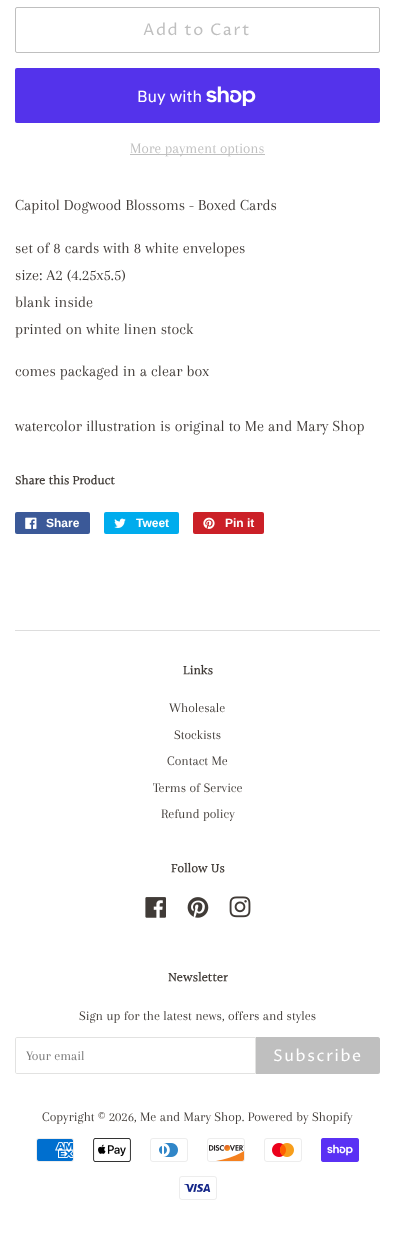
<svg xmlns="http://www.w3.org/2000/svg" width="395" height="1235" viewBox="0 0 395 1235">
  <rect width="100%" height="100%" fill="#fff"/>
  <rect x="15.5" y="7.5" width="364" height="45" rx="1.5" fill="none" stroke="#bfbfbf"/>
  <rect x="15" y="68" width="365" height="55" rx="2" fill="#5433eb"/>
  <image x="206" y="86" width="50" height="20" href="img/1.png"/>
  <path d="M130 154h135v1H130z" fill="#bfbfbf"/>
  <rect x="15" y="512" width="75" height="22" rx="2" fill="#3b5998"/>
  <image x="25" y="517" width="12" height="12" href="img/2.png"/>
  <rect x="104" y="512" width="75" height="22" rx="2" fill="#00aced"/>
  <image x="114" y="518" width="12" height="10" href="img/3.png"/>
  <rect x="193" y="512" width="71" height="22" rx="2" fill="#cb2027"/>
  <image x="203" y="517" width="12" height="12" href="img/4.png"/>
  <path d="M15 630h365v1H15z" fill="#ddd"/>
  <image x="145" y="897" width="21" height="21" href="img/5.png"/>
  <image x="187" y="897" width="22" height="21" href="img/6.png"/>
  <image x="229" y="896" width="22" height="22" href="img/7.png"/>
  <path d="M17 1037.5H255.5V1073.5H17C16 1073.5 15.5 1073 15.5 1072V1039C15.5 1038 16 1037.5 17 1037.5Z" fill="none" stroke="#e2e2e1"/>
  <path d="M256 1037H378C379 1037 380 1038 380 1039V1072C380 1073 379 1074 378 1074H256Z" fill="#bfbfbf"/>
  <image x="36" y="1138" width="38" height="24" href="img/8.png"/>
  <image x="93" y="1138" width="38" height="24" href="img/9.png"/>
  <image x="150" y="1138" width="38" height="24" href="img/10.png"/>
  <image x="207" y="1138" width="38" height="24" href="img/11.png"/>
  <image x="264" y="1138" width="38" height="24" href="img/12.png"/>
  <image x="321" y="1138" width="38" height="24" href="img/13.png"/>
  <image x="179" y="1176" width="38" height="24" href="img/14.png"/>
  <text x="143" y="35" font-family="Proza Libre" font-size="16" letter-spacing="1.6" fill="#bfbfbf">Add to Cart</text>
  <text x="137" y="102" font-family="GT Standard" font-size="16" fill="#fff">Buy with</text>
  <text x="130" y="153" font-family="Arapey" font-size="15" fill="#bfbfbf">More payment options</text>
  <g font-family="Arapey" font-size="16" fill="#403b37">
    <text x="15" y="210">Capitol Dogwood Blossoms - Boxed Cards</text>
    <text x="15" y="253">set of 8 cards with 8 white envelopes</text>
    <text x="15" y="280">size: A2 (4.25x5.5)</text>
    <text x="15" y="307">blank inside</text>
    <text x="15" y="334">printed on white linen stock</text>
    <text x="15" y="376">comes packaged in a clear box</text>
    <text x="15" y="431">watercolor illustration is original to Me and Mary Shop</text>
  </g>
  <text x="15" y="485" font-family="Halant" font-size="13" font-weight="bold" fill="#403b37">Share this Product</text>
  <g font-family="Liberation Sans" font-size="12" font-weight="bold" fill="#fff">
    <text x="46" y="527">Share</text>
    <text x="136" y="527">Tweet</text>
    <text x="225" y="527">Pin it</text>
  </g>
  <text x="183" y="675" font-family="Halant" font-size="13" font-weight="bold" fill="#403b37">Links</text>
  <g font-family="Arapey" font-size="13.6" fill="#403b37">
    <text x="169" y="712">Wholesale</text>
    <text x="174" y="739">Stockists</text>
    <text x="167" y="765">Contact Me</text>
    <text x="153" y="792">Terms of Service</text>
    <text x="161" y="818">Refund policy</text>
  </g>
  <g font-family="Halant" font-size="13" font-weight="bold" fill="#403b37">
    <text x="171" y="873">Follow Us</text>
    <text x="168" y="982">Newsletter</text>
  </g>
  <text x="79" y="1020" font-family="Arapey" font-size="13.6" fill="#403b37">Sign up for the latest news, offers and styles</text>
  <text x="26" y="1060" font-family="Arapey" font-size="13.6" fill="#757575">Your email</text>
  <text x="273" y="1061" font-family="Proza Libre" font-size="16" letter-spacing="1.6" fill="#fff">Subscribe</text>
  <text x="42" y="1121" font-family="Arapey" font-size="13.6" fill="#403b37">Copyright © 2026, Me and Mary Shop. Powered by Shopify</text>
</svg>
